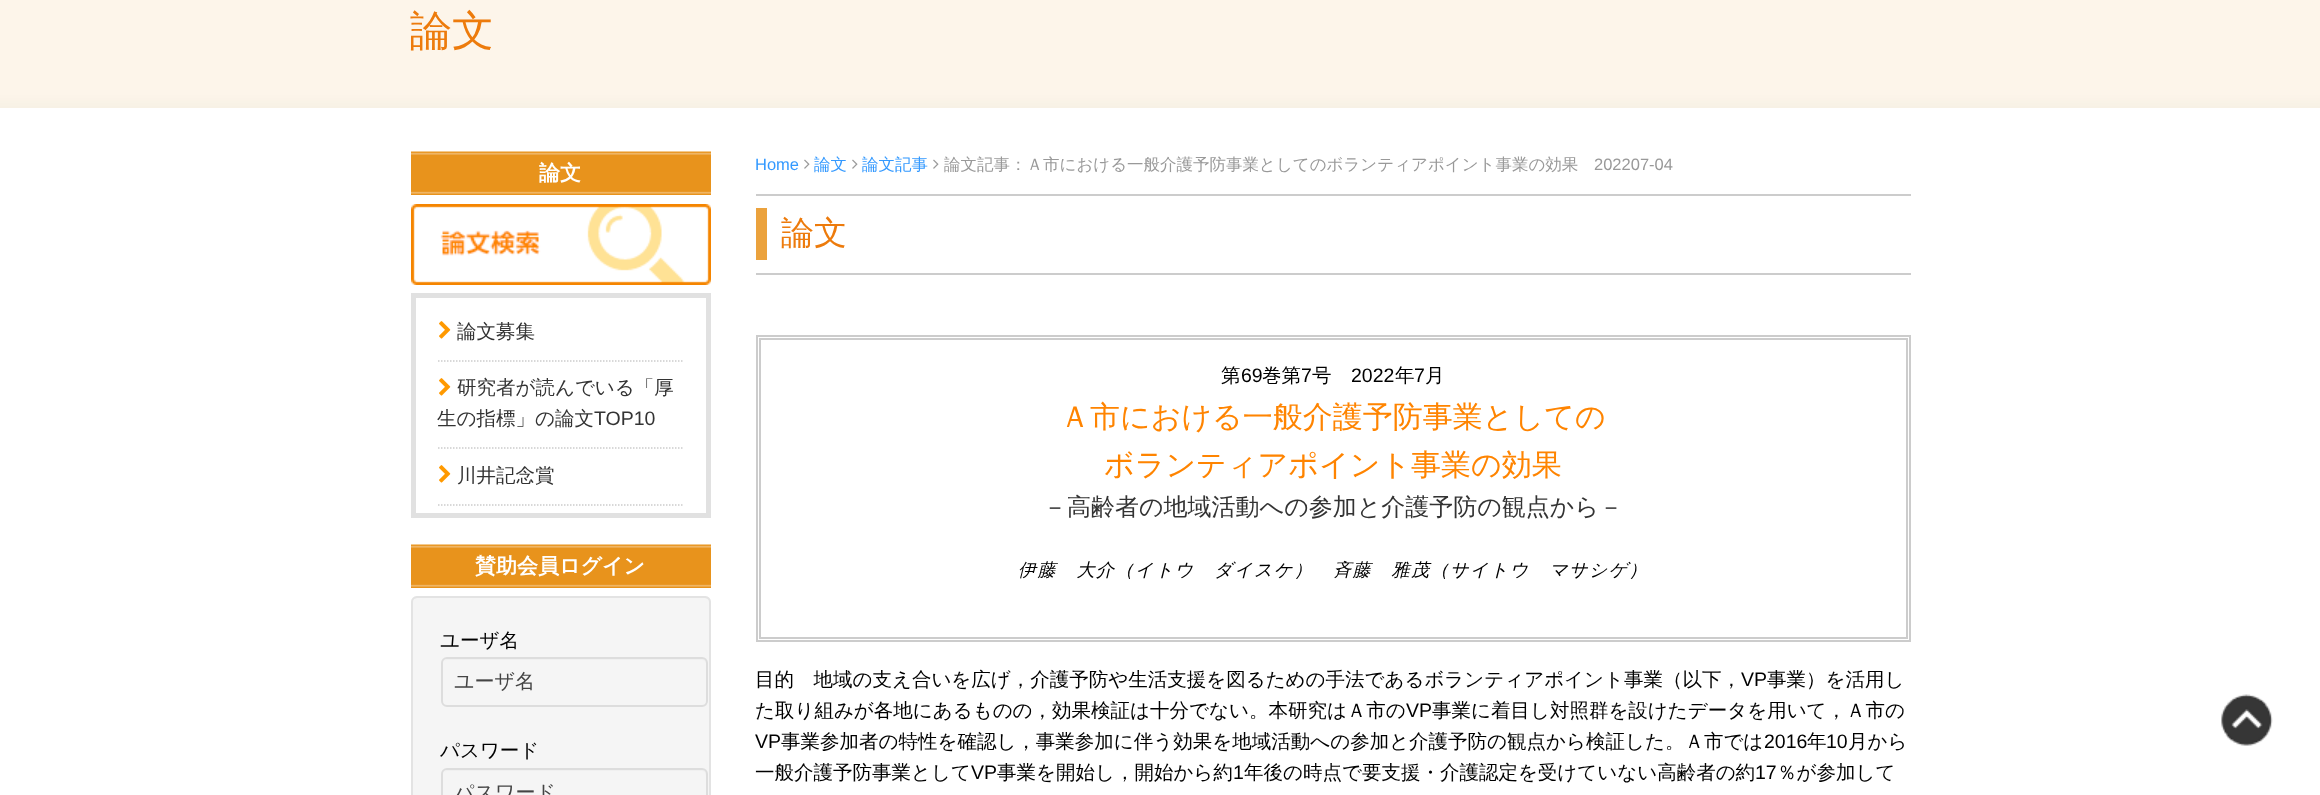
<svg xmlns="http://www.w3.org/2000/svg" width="2320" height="795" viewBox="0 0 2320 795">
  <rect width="100%" height="100%" fill="#fff"/>
  <image x="0" y="0" width="2320" height="108" href="img/1.png"/>
  <image x="411" y="151" width="300" height="44" href="img/2.png"/>
  <image x="411" y="204" width="300" height="81" href="img/3.png"/>
  <path d="M413.5 295.5h295v220H413.5z" fill="none" stroke="#e1e1e1" stroke-width="5"/>
  <path d="M438 361H684" fill="none" stroke="#ccc" stroke-width="1.5" stroke-dasharray="1.5 1.5"/>
  <image x="439" y="321" width="12" height="18" href="img/4.png"/>
  <path d="M438 448H684" fill="none" stroke="#ccc" stroke-width="1.5" stroke-dasharray="1.5 1.5"/>
  <image x="439" y="378" width="12" height="18" href="img/4.png"/>
  <path d="M438 505H684" fill="none" stroke="#ccc" stroke-width="1.5" stroke-dasharray="1.5 1.5"/>
  <image x="439" y="465" width="12" height="18" href="img/4.png"/>
  <image x="411" y="544" width="300" height="44" href="img/2.png"/>
  <rect x="411" y="596" width="300" height="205" rx="6" fill="#f5f5f5"/>
  <path d="M417 598H705C707 598 710 601 710 603V602C710 599 708 597 705 597H418C416 597 414 598 413 600C414 599 416 598 417 598Z" fill="#e9e9e9"/>
  <rect x="412" y="597" width="298" height="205" rx="5" fill="none" stroke="#e3e3e3" stroke-width="2"/>
  <path d="M447 660H702C704 660 706 662 706 664V703C707 702 707 701 707 700V664C707 661 705 659 702 659H448C446 659 445 660 444 661Z" fill="#f0f0f0"/>
  <rect x="442" y="658" width="265" height="48" rx="5" fill="none" stroke="#ddd" stroke-width="2"/>
  <path d="M447 771H702C704 771 706 773 706 776V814C707 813 707 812 707 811V775C707 772 705 770 702 770H448C446 770 445 771 444 772Z" fill="#f0f0f0"/>
  <rect x="442" y="769" width="265" height="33" rx="5" fill="none" stroke="#ddd" stroke-width="2"/>
  <image x="804" y="159" width="6" height="10" href="img/5.png"/>
  <image x="852" y="159" width="6" height="10" href="img/5.png"/>
  <image x="933" y="159" width="6" height="10" href="img/5.png"/>
  <path d="M756 208h11v52H756z" fill="#eba23d"/>
  <path d="M756 194h1155v2H756z" fill="#ccc"/>
  <path d="M756 273h1155v2H756z" fill="#ccc"/>
  <path d="M757 336h1153v305H757z" fill="none" stroke="#ccc" stroke-width="2"/>
  <path d="M760 339h1147v299H760z" fill="none" stroke="#ccc" stroke-width="2"/>
  <image x="2221" y="694" width="52" height="52" href="img/6.png"/>
  <text x="410" y="45" font-family="WenQuanYi Zen Hei" font-size="42" font-weight="500" fill="#ed7b0c">論文</text>
  <text x="539" y="180" font-family="WenQuanYi Zen Hei" font-size="21" font-weight="bold" fill="#fff">論文</text>
  <g font-family="WenQuanYi Zen Hei" font-size="19.5" font-weight="500" fill="#333">
    <text x="457" y="338">論文募集</text>
    <text x="457" y="394">研究者が読んでいる「厚</text>
    <text x="437" y="425">生の指標」の論文</text>
  </g>
  <text x="594" y="425" font-family="Liberation Sans" font-size="19.5" fill="#333">TOP10</text>
  <text x="457" y="482" font-family="WenQuanYi Zen Hei" font-size="19.5" font-weight="500" fill="#333">川井記念賞</text>
  <text x="475" y="573" font-family="WenQuanYi Zen Hei" font-size="21" font-weight="bold" fill="#fff">賛助会員ログイン</text>
  <text x="440" y="647" font-family="WenQuanYi Zen Hei" font-size="19.5" font-weight="500" fill="#000">ユーザ名</text>
  <text x="454" y="688" font-family="WenQuanYi Zen Hei" font-size="20" font-weight="500" fill="#444">ユーザ名</text>
  <text x="440" y="757" font-family="WenQuanYi Zen Hei" font-size="19.5" font-weight="500" fill="#000">パスワード</text>
  <text x="454" y="799" font-family="WenQuanYi Zen Hei" font-size="20" font-weight="500" fill="#444">パスワード</text>
  <text x="755" y="170" font-family="Liberation Sans" font-size="16.5" fill="#39f">Home</text>
  <g font-family="WenQuanYi Zen Hei" font-size="16.5" font-weight="500" fill="#39f">
    <text x="814" y="170">論文</text>
    <text x="862" y="170">論文記事</text>
  </g>
  <text x="944" y="170" font-family="WenQuanYi Zen Hei" font-size="16.5" font-weight="500" fill="#999">論文記事：Ａ市における一般介護予防事業としてのボランティアポイント事業の効果</text>
  <text x="1594" y="170" font-family="Liberation Sans" font-size="16.5" fill="#999">202207-04</text>
  <text x="781" y="244" font-family="WenQuanYi Zen Hei" font-size="33" font-weight="500" fill="#ed7b0c">論文</text>
  <text x="1221" y="382" font-family="WenQuanYi Zen Hei" font-size="19.5" font-weight="500" fill="#000">第</text>
  <text x="1241" y="382" font-family="Liberation Sans" font-size="19.5" fill="#000">69</text>
  <text x="1262" y="382" font-family="WenQuanYi Zen Hei" font-size="19.5" font-weight="500" fill="#000">巻第</text>
  <text x="1301" y="382" font-family="Liberation Sans" font-size="19.5" fill="#000">7</text>
  <text x="1312" y="382" font-family="WenQuanYi Zen Hei" font-size="19.5" font-weight="500" fill="#000">号</text>
  <text x="1351" y="382" font-family="Liberation Sans" font-size="19.5" fill="#000">2022</text>
  <text x="1395" y="382" font-family="WenQuanYi Zen Hei" font-size="19.5" font-weight="500" fill="#000">年</text>
  <text x="1414" y="382" font-family="Liberation Sans" font-size="19.5" fill="#000">7</text>
  <text x="1425" y="382" font-family="WenQuanYi Zen Hei" font-size="19.5" font-weight="500" fill="#000">月</text>
  <g font-family="WenQuanYi Zen Hei" font-size="30" font-weight="500" fill="#ff8400">
    <text x="1060" y="427">Ａ市における一般介護予防事業としての</text>
    <text x="1104" y="475">ボランティアポイント事業の効果</text>
  </g>
  <text x="1043" y="515" font-family="WenQuanYi Zen Hei" font-size="24" font-weight="500" fill="#333">－高齢者の地域活動への参加と介護予防の観点から－</text>
  <text x="1018" y="576" font-family="WenQuanYi Zen Hei" font-size="18" font-weight="500" font-style="italic" letter-spacing="1.5" fill="#000">伊藤　大介（イトウ　ダイスケ）　斉藤　雅茂（サイトウ　マサシゲ）</text>
  <text x="755" y="686" font-family="WenQuanYi Zen Hei" font-size="19.5" font-weight="500" fill="#000">目的　地域の支え合いを広げ，介護予防や生活支援を図るための手法であるボランティアポイント事業（以下，</text>
  <text x="1741" y="686" font-family="Liberation Sans" font-size="19.5" fill="#000">VP</text>
  <g font-family="WenQuanYi Zen Hei" font-size="19.5" font-weight="500" fill="#000">
    <text x="1767" y="686">事業）を活用し</text>
    <text x="755" y="717">た取り組みが各地にあるものの，効果検証は十分でない。本研究はＡ市の</text>
  </g>
  <text x="1406" y="717" font-family="Liberation Sans" font-size="19.5" fill="#000">VP</text>
  <text x="1432" y="717" font-family="WenQuanYi Zen Hei" font-size="19.5" font-weight="500" fill="#000">事業に着目し対照群を設けたデータを用いて，Ａ市の</text>
  <text x="755" y="748" font-family="Liberation Sans" font-size="19.5" fill="#000">VP</text>
  <text x="781" y="748" font-family="WenQuanYi Zen Hei" font-size="19.5" font-weight="500" fill="#000">事業参加者の特性を確認し，事業参加に伴う効果を地域活動への参加と介護予防の観点から検証した。Ａ市では</text>
  <text x="1764" y="748" font-family="Liberation Sans" font-size="19.5" fill="#000">2016</text>
  <text x="1807" y="748" font-family="WenQuanYi Zen Hei" font-size="19.5" font-weight="500" fill="#000">年</text>
  <text x="1826" y="748" font-family="Liberation Sans" font-size="19.5" fill="#000">10</text>
  <g font-family="WenQuanYi Zen Hei" font-size="19.5" font-weight="500" fill="#000">
    <text x="1848" y="748">月から</text>
    <text x="755" y="779">一般介護予防事業として</text>
  </g>
  <text x="971" y="779" font-family="Liberation Sans" font-size="19.5" fill="#000">VP</text>
  <text x="997" y="779" font-family="WenQuanYi Zen Hei" font-size="19.5" font-weight="500" fill="#000">事業を開始し，開始から約</text>
  <text x="1233" y="779" font-family="Liberation Sans" font-size="19.5" fill="#000">1</text>
  <text x="1244" y="779" font-family="WenQuanYi Zen Hei" font-size="19.5" font-weight="500" fill="#000">年後の時点で要支援・介護認定を受けていない高齢者の約</text>
  <text x="1755" y="779" font-family="Liberation Sans" font-size="19.5" fill="#000">17</text>
  <text x="1777" y="779" font-family="WenQuanYi Zen Hei" font-size="19.5" font-weight="500" fill="#000">％が参加して</text>
</svg>
